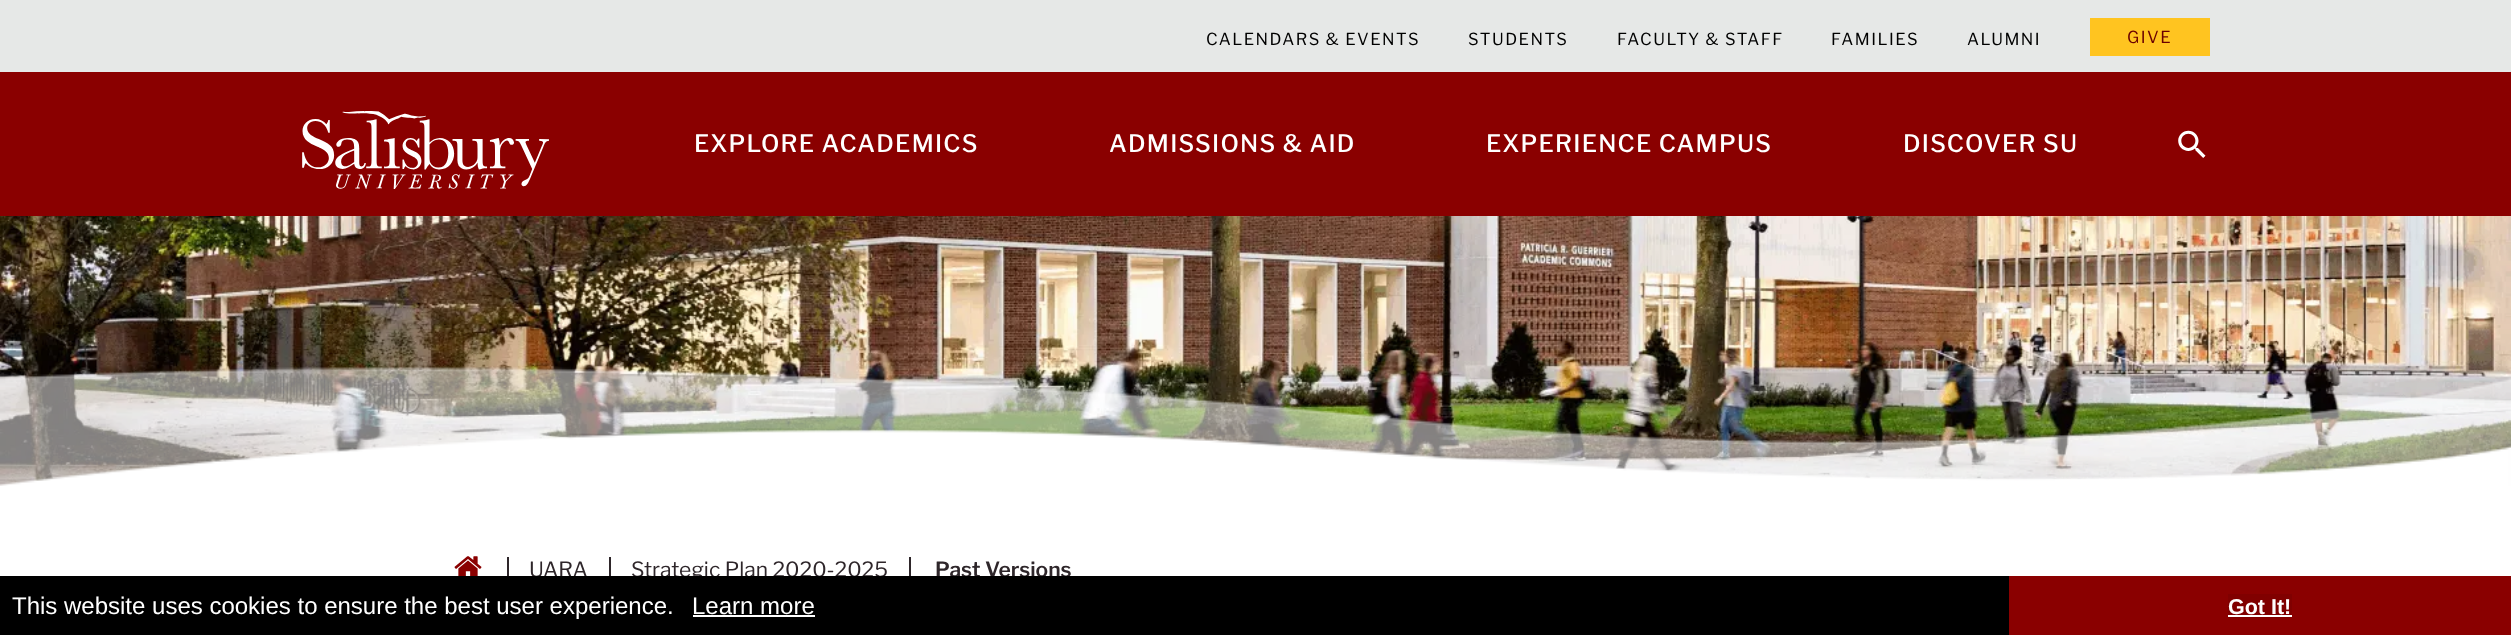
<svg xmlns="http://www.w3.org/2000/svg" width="2511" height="635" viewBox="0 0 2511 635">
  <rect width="100%" height="100%" fill="#e6e8e7"/>
  <path d="M0 72h2511v144H0z" fill="#8a0000"/>
  <image x="302" y="111" width="247" height="78" href="img/1.png"/>
  <path d="M2090 18h120v38H2090z" fill="#ffc420"/>
  <image x="2178" y="130" width="28" height="28" href="img/2.png"/>
  <image x="0" y="216" width="2511" height="270" href="img/3.png"/>
  <image x="0" y="367" width="2511" height="119" href="img/4.png"/>
  <path d="M0 486h2511v90H0z" fill="#fff"/>
  <image x="454" y="556" width="28" height="20" href="img/5.png"/>
  <path d="M507 557h2v22H507z" fill="#2e262a"/>
  <path d="M609 557h2v22H609z" fill="#2e262a"/>
  <path d="M909 557h2v22H909z" fill="#2e262a"/>
  <path d="M2009 576h502v59H2009z" fill="#8a0000"/>
  <path d="M2228 594h64v24H2228z" fill="#800000"/>
  <path d="M2228 615h64v2H2228z" fill="#fff"/>
  <g font-family="Libre Franklin" font-size="16.5" letter-spacing="1.5" fill="#000">
    <text x="1206" y="45">CALENDARS &amp; EVENTS</text>
    <text x="1468" y="45">STUDENTS</text>
    <text x="1617" y="45">FACULTY &amp; STAFF</text>
    <text x="1831" y="45">FAMILIES</text>
    <text x="1967" y="45">ALUMNI</text>
  </g>
  <text x="2127" y="43" font-family="Libre Franklin" font-size="16.5" letter-spacing="1.5" fill="#6a0000">GIVE</text>
  <g font-family="Libre Franklin" font-size="24" font-weight="500" letter-spacing="1.25" fill="#fff">
    <text x="694" y="152">EXPLORE ACADEMICS</text>
    <text x="1109" y="152">ADMISSIONS &amp; AID</text>
    <text x="1486" y="152">EXPERIENCE CAMPUS</text>
    <text x="1903" y="152">DISCOVER SU</text>
  </g>
  <g font-family="Libre Franklin" font-size="21" fill="#2e262a">
    <text x="529" y="577">UARA</text>
    <text x="631" y="577">Strategic Plan 2020-2025</text>
  </g>
  <text x="935" y="577" font-family="Libre Franklin" font-size="21" font-weight="600" fill="#2e262a">Past Versions</text>
  <path d="M0 576h2009v59H0z" fill="#000"/>
  <g font-family="Liberation Sans" font-size="24" fill="#fff">
    <text x="12" y="614">This website uses cookies to ensure the best user experience.</text>
    <text x="692" y="614">Learn more</text>
  </g>
  <path d="M693 615h122v2H693z" fill="#fff"/>
  <text x="2228" y="614" font-family="Liberation Sans" font-size="21.5" font-weight="bold" fill="#fff">Got It!</text>
</svg>
